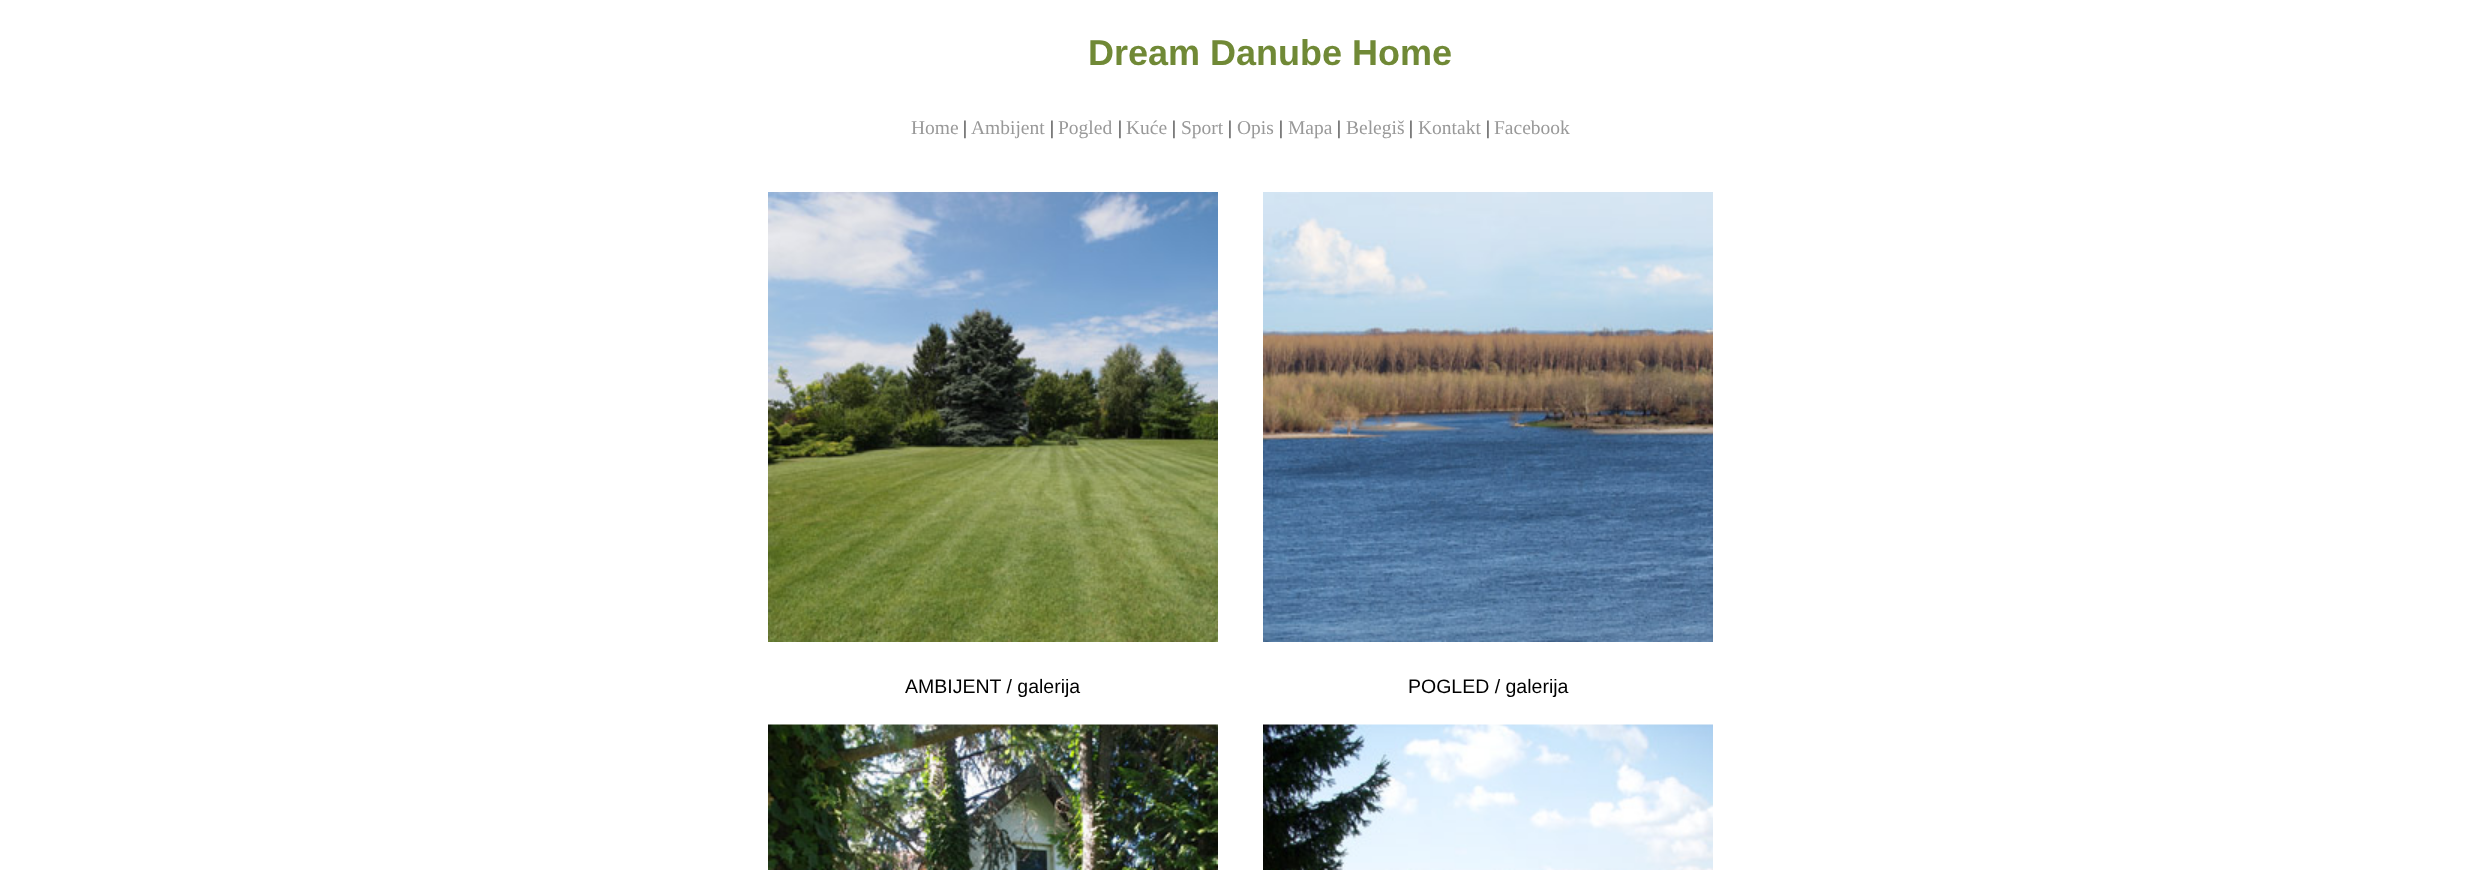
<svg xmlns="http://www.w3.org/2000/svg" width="2481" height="870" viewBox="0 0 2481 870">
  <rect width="100%" height="100%" fill="#fff"/>
  <image x="768" y="192" width="450" height="450" href="img/1.png"/>
  <image x="1263" y="192" width="450" height="450" href="img/2.png"/>
  <image x="768" y="724" width="450" height="146" href="img/3.png"/>
  <image x="1263" y="724" width="450" height="146" href="img/4.png"/>
  <text x="1088" y="65" font-family="Liberation Sans" font-size="36" font-weight="bold" fill="#708936">Dream Danube Home</text>
  <text x="911" y="134" font-family="Liberation Serif" font-size="19.5" fill="#999">Home</text>
  <text x="963" y="134" font-family="Liberation Serif" font-size="19.5" fill="#000">|</text>
  <text x="971" y="134" font-family="Liberation Serif" font-size="19.5" fill="#999">Ambijent</text>
  <text x="1050" y="134" font-family="Liberation Serif" font-size="19.5" fill="#000">|</text>
  <text x="1058" y="134" font-family="Liberation Serif" font-size="19.5" fill="#999">Pogled</text>
  <text x="1118" y="134" font-family="Liberation Serif" font-size="19.5" fill="#000">|</text>
  <text x="1126" y="134" font-family="Liberation Serif" font-size="19.5" fill="#999">Kuće</text>
  <text x="1172" y="134" font-family="Liberation Serif" font-size="19.5" fill="#000">|</text>
  <text x="1181" y="134" font-family="Liberation Serif" font-size="19.5" fill="#999">Sport</text>
  <text x="1228" y="134" font-family="Liberation Serif" font-size="19.5" fill="#000">|</text>
  <text x="1237" y="134" font-family="Liberation Serif" font-size="19.5" fill="#999">Opis</text>
  <text x="1279" y="134" font-family="Liberation Serif" font-size="19.5" fill="#000">|</text>
  <text x="1288" y="134" font-family="Liberation Serif" font-size="19.5" fill="#999">Mapa</text>
  <text x="1337" y="134" font-family="Liberation Serif" font-size="19.5" fill="#000">|</text>
  <text x="1346" y="134" font-family="Liberation Serif" font-size="19.5" fill="#999">Belegiš</text>
  <text x="1409" y="134" font-family="Liberation Serif" font-size="19.5" fill="#000">|</text>
  <text x="1418" y="134" font-family="Liberation Serif" font-size="19.5" fill="#999">Kontakt</text>
  <text x="1486" y="134" font-family="Liberation Serif" font-size="19.5" fill="#000">|</text>
  <text x="1494" y="134" font-family="Liberation Serif" font-size="19.5" fill="#999">Facebook</text>
  <g font-family="Liberation Sans" font-size="19.5" fill="#000">
    <text x="905" y="693">AMBIJENT / galerija</text>
    <text x="1408" y="693">POGLED / galerija</text>
  </g>
</svg>
